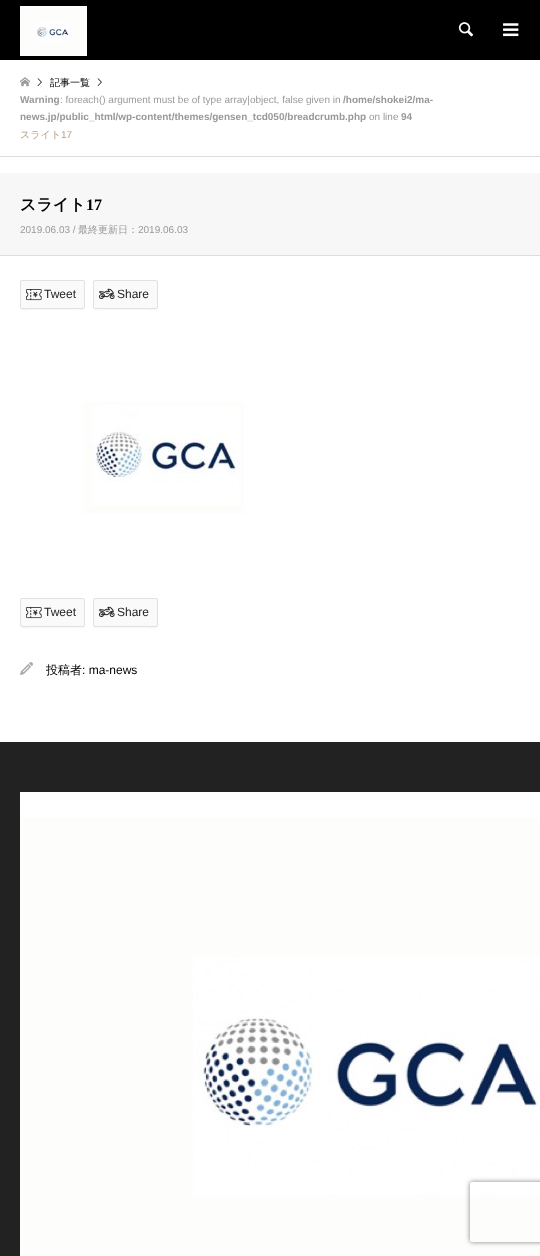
<svg xmlns="http://www.w3.org/2000/svg" width="540" height="1256" viewBox="0 0 540 1256">
  <defs>
    <clipPath id="clip1"><path d="M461 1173H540V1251H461ZM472 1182H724C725 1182 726 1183 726 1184V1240C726 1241 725 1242 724 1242H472C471 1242 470 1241 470 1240V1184C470 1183 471 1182 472 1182Z" clip-rule="evenodd"/></clipPath>
  </defs>
  <rect width="100%" height="100%" fill="#fff"/>
  <path d="M0 0h540v60H0z" fill="#000"/>
  <image x="20" y="6" width="67" height="50" href="img/1.png"/>
  <image x="458" y="22" width="16" height="15" href="img/2.png"/>
  <image x="503" y="23" width="16" height="14" href="img/3.png"/>
  <path d="M0 156h540v1H0z" fill="#ddd"/>
  <image x="20" y="77" width="10" height="10" href="img/4.png"/>
  <image x="37" y="78" width="5" height="8" href="img/5.png"/>
  <image x="97" y="78" width="5" height="8" href="img/5.png"/>
  <path d="M0 173h540v82H0z" fill="#f7f7f7"/>
  <path d="M0 255h540v1H0z" fill="#ddd"/>
  <path d="M20 307C20 313 28 310 32 310H73C77 310 85 313 85 307C85 311 77 309 73 309H21Z" fill="#f7f7f7"/>
  <rect x="20.5" y="280.5" width="64" height="28" rx="1.5" fill="#fafafa" stroke="#e1e1e1"/>
  <image x="26" y="289" width="16" height="12" href="img/6.png"/>
  <path d="M93 307C93 313 101 310 105 310H146C150 310 158 313 158 307L157 309H105C101 309 93 311 93 307Z" fill="#f7f7f7"/>
  <rect x="93.5" y="280.5" width="64" height="28" rx="1.5" fill="#fafafa" stroke="#e1e1e1"/>
  <image x="99" y="288" width="16" height="11" href="img/7.png"/>
  <image x="84" y="402" width="160" height="112" href="img/8.png"/>
  <path d="M20 625C20 631 28 628 32 628H73C77 628 85 631 85 625C85 629 77 627 73 627H21Z" fill="#f7f7f7"/>
  <rect x="20.5" y="598.5" width="64" height="28" rx="1.5" fill="#fafafa" stroke="#e1e1e1"/>
  <image x="26" y="607" width="16" height="12" href="img/6.png"/>
  <path d="M93 625C93 631 101 628 105 628H146C150 628 158 631 158 625L157 627H105C101 627 93 629 93 625Z" fill="#f7f7f7"/>
  <rect x="93.5" y="598.5" width="64" height="28" rx="1.5" fill="#fafafa" stroke="#e1e1e1"/>
  <image x="99" y="606" width="16" height="11" href="img/7.png"/>
  <image x="20" y="662" width="13" height="13" href="img/9.png"/>
  <path d="M0 742h540v514H0z" fill="#222"/>
  <image x="20" y="792" width="520" height="464" href="img/10.png"/>
  <g clip-path="url(#clip1)">
    <rect x="470" y="1182" width="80" height="60" rx="2" fill="#808080" filter="blur(2.5px)"/>
  </g>
  <text x="50" y="86" font-family="WenQuanYi Zen Hei" font-size="10" font-weight="500" fill="#000">記事一覧</text>
  <text x="20" y="103" font-family="Liberation Sans" font-size="10" font-weight="bold" fill="#999">Warning</text>
  <text x="60" y="103" font-family="Liberation Sans" font-size="10" fill="#999">: foreach() argument must be of type array|object, false given in</text>
  <g font-family="Liberation Sans" font-size="10" font-weight="bold" fill="#999">
    <text x="343" y="103">/home/shokei2/ma-</text>
    <text x="20" y="120">news.jp/public_html/wp-content/themes/gensen_tcd050/breadcrumb.php</text>
  </g>
  <text x="369" y="120" font-family="Liberation Sans" font-size="10" fill="#999">on line</text>
  <text x="401" y="120" font-family="Liberation Sans" font-size="10" font-weight="bold" fill="#999">94</text>
  <text x="20" y="138" font-family="WenQuanYi Zen Hei" font-size="10" font-weight="500" fill="#b69e84">スライド</text>
  <text x="61" y="138" font-family="Liberation Sans" font-size="10" fill="#b69e84">17</text>
  <text x="20" y="210" font-family="WenQuanYi Zen Hei" font-size="16" font-weight="bold" fill="#000">スライド</text>
  <text x="86" y="210" font-family="Liberation Serif" font-size="16" font-weight="bold" fill="#000">17</text>
  <text x="20" y="233" font-family="Liberation Sans" font-size="10" fill="#999">2019.06.03 /</text>
  <text x="78" y="233" font-family="WenQuanYi Zen Hei" font-size="10" font-weight="500" fill="#999">最終更新日：</text>
  <text x="138" y="233" font-family="Liberation Sans" font-size="10" fill="#999">2019.06.03</text>
  <g font-family="Liberation Sans" font-size="12" fill="#222">
    <text x="44" y="298">Tweet</text>
    <text x="117" y="298">Share</text>
    <text x="44" y="616">Tweet</text>
    <text x="117" y="616">Share</text>
  </g>
  <text x="46" y="674" font-family="WenQuanYi Zen Hei" font-size="12" font-weight="500" fill="#000">投稿者</text>
  <text x="82" y="674" font-family="Liberation Sans" font-size="12" fill="#000">: ma-news</text>
</svg>
